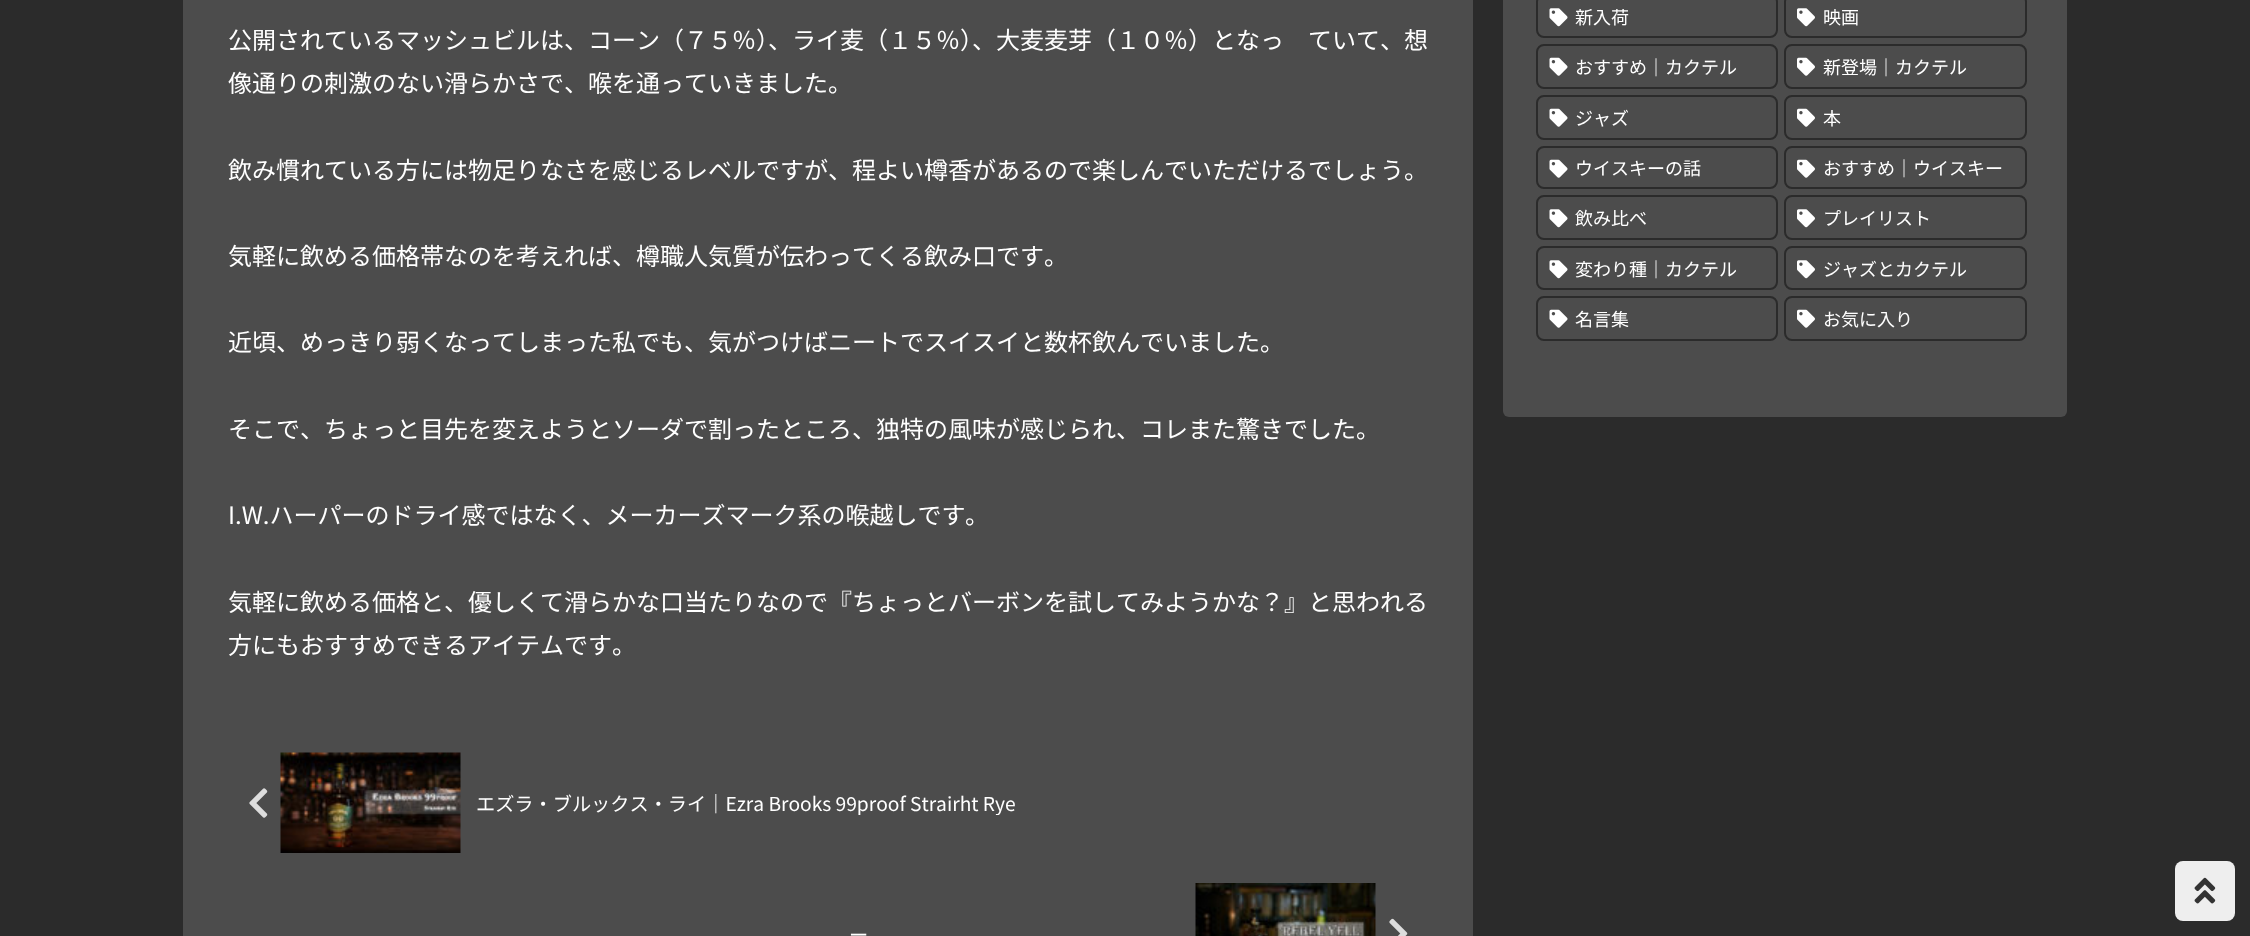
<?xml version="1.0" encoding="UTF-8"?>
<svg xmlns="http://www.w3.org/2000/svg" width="2250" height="936">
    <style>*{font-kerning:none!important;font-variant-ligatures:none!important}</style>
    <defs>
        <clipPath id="clip1"><rect x="476" y="792" width="540" height="23"/></clipPath>
    </defs>
    <rect width="100%" height="100%" fill="#2B2B2B"/>
    <rect x="183" y="0" width="1290" height="936" fill="#4C4C4C"/>
    <text x="228" y="49" font-family="Noto Sans JP" font-size="24" fill="#FFFFFF">公開されているマッシュビルは、コーン（７５％）、ライ麦（１５％）、大麦麦芽（１０％）となっ</text>
    <text x="1308" y="49" font-family="Noto Sans JP" font-size="24" fill="#FFFFFF">ていて、想</text>
    <text x="228" y="92" font-family="Noto Sans JP" font-size="24" fill="#FFFFFF">像通りの刺激のない滑らかさで、喉を通っていきました。</text>
    <text x="228" y="179" font-family="Noto Sans JP" font-size="24" fill="#FFFFFF">飲み慣れている方には物足りなさを感じるレベルですが、程よい樽香があるので楽しんでいただけるでしょう。</text>
    <text x="228" y="265" font-family="Noto Sans JP" font-size="24" fill="#FFFFFF">気軽に飲める価格帯なのを考えれば、樽職人気質が伝わってくる飲み口です</text>
    <text x="1044" y="265" font-family="Noto Sans JP" font-size="24" fill="#FFFFFF">。</text>
    <text x="228" y="351" font-family="Noto Sans JP" font-size="24" fill="#FFFFFF">近頃、めっきり弱くなってしまった私でも、気がつけばニートでスイスイと数杯飲ん</text>
    <text x="1140" y="351" font-family="Noto Sans JP" font-size="24" fill="#FFFFFF">でいました。</text>
    <text x="228" y="438" font-family="Noto Sans JP" font-size="24" fill="#FFFFFF">そこで、ちょっと目先を変えようとソーダで割ったところ、独特の風味が感じられ、コレまた驚きでした。</text>
    <text x="228" y="524" font-family="Noto Sans JP" font-size="24" fill="#FFFFFF">I.W.ハーパーのドライ感ではなく、メーカーズマーク系の喉越しです</text>
    <text x="965" y="524" font-family="Noto Sans JP" font-size="24" fill="#FFFFFF">。</text>
    <text font-family="Noto Sans JP" font-size="24" fill="#FFFFFF">
        <tspan x="228" y="611">気軽に飲める価格と、優しくて滑らかな口当たりなので『ちょっとバーボンを試してみようかな？』と思われる</tspan>
        <tspan x="228" y="654">方にもおすすめできるアイテムです</tspan>
    </text>
    <text x="612" y="654" font-family="Noto Sans JP" font-size="24" fill="#FFFFFF">。</text>
    <image x="249" y="788" width="19" height="30" href="img_01.png"/>
    <image x="280" y="752" width="181" height="101" href="img_02.png"/>
    <g clip-path="url(#clip1)">
        <text x="476" y="811" font-family="Noto Sans JP" font-size="19.2" fill="#FFFFFF">エズラ・ブルックス・ライ｜Ezra Brooks 99proof Strairht Rye</text>
    </g>
    <text x="849" y="942" font-family="Noto Sans JP" font-size="19.2" fill="#FFFFFF">ー</text>
    <image x="1195" y="883" width="181" height="53" href="img_03.png"/>
    <image x="1389" y="918" width="19" height="18" href="img_04.png"/>
    <rect x="1503" y="-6" width="564" height="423" rx="6" fill="#4C4C4C"/>
    <rect x="1537" y="-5" width="240" height="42" rx="7" fill="none" stroke="#2B2B2B" stroke-width="2"/>
    <image x="1549" y="8" width="19" height="19" href="img_05.png"/>
    <text x="1575" y="24" font-family="Noto Sans JP" font-size="18" fill="#FFFFFF">新入荷</text>
    <rect x="1785" y="-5" width="241" height="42" rx="7" fill="none" stroke="#2B2B2B" stroke-width="2"/>
    <image x="1797" y="8" width="18" height="19" href="img_06.png"/>
    <text x="1823" y="24" font-family="Noto Sans JP" font-size="18" fill="#FFFFFF">映画</text>
    <rect x="1537" y="45" width="240" height="43" rx="7" fill="none" stroke="#2B2B2B" stroke-width="2"/>
    <image x="1549" y="57" width="19" height="19" href="img_07.png"/>
    <text x="1575" y="74" font-family="Noto Sans JP" font-size="18" fill="#FFFFFF">おすすめ｜カクテル</text>
    <rect x="1785" y="45" width="241" height="43" rx="7" fill="none" stroke="#2B2B2B" stroke-width="2"/>
    <image x="1797" y="57" width="18" height="19" href="img_08.png"/>
    <text x="1823" y="74" font-family="Noto Sans JP" font-size="18" fill="#FFFFFF">新登場｜カクテル</text>
    <rect x="1537" y="96" width="240" height="43" rx="7" fill="none" stroke="#2B2B2B" stroke-width="2"/>
    <image x="1549" y="108" width="19" height="19" href="img_07.png"/>
    <text x="1575" y="125" font-family="Noto Sans JP" font-size="18" fill="#FFFFFF">ジャズ</text>
    <rect x="1785" y="96" width="241" height="43" rx="7" fill="none" stroke="#2B2B2B" stroke-width="2"/>
    <image x="1797" y="108" width="18" height="19" href="img_08.png"/>
    <text x="1823" y="125" font-family="Noto Sans JP" font-size="18" fill="#FFFFFF">本</text>
    <rect x="1537" y="147" width="240" height="41" rx="7" fill="none" stroke="#2B2B2B" stroke-width="2"/>
    <image x="1549" y="159" width="19" height="19" href="img_07.png"/>
    <text x="1575" y="175" font-family="Noto Sans JP" font-size="18" fill="#FFFFFF">ウイスキーの話</text>
    <rect x="1785" y="147" width="241" height="41" rx="7" fill="none" stroke="#2B2B2B" stroke-width="2"/>
    <image x="1797" y="159" width="18" height="19" href="img_08.png"/>
    <text x="1823" y="175" font-family="Noto Sans JP" font-size="18" fill="#FFFFFF">おすすめ｜ウイスキー</text>
    <rect x="1537" y="196" width="240" height="43" rx="7" fill="none" stroke="#2B2B2B" stroke-width="2"/>
    <image x="1549" y="209" width="19" height="19" href="img_05.png"/>
    <text x="1575" y="225" font-family="Noto Sans JP" font-size="18" fill="#FFFFFF">飲み比べ</text>
    <rect x="1785" y="196" width="241" height="43" rx="7" fill="none" stroke="#2B2B2B" stroke-width="2"/>
    <image x="1797" y="209" width="18" height="19" href="img_06.png"/>
    <text x="1823" y="225" font-family="Noto Sans JP" font-size="18" fill="#FFFFFF">プレイリスト</text>
    <rect x="1537" y="247" width="240" height="42" rx="7" fill="none" stroke="#2B2B2B" stroke-width="2"/>
    <image x="1549" y="260" width="19" height="19" href="img_05.png"/>
    <text x="1575" y="276" font-family="Noto Sans JP" font-size="18" fill="#FFFFFF">変わり種｜カクテル</text>
    <rect x="1785" y="247" width="241" height="42" rx="7" fill="none" stroke="#2B2B2B" stroke-width="2"/>
    <image x="1797" y="260" width="18" height="19" href="img_06.png"/>
    <text x="1823" y="276" font-family="Noto Sans JP" font-size="18" fill="#FFFFFF">ジャズとカクテル</text>
    <rect x="1537" y="297" width="240" height="43" rx="7" fill="none" stroke="#2B2B2B" stroke-width="2"/>
    <image x="1549" y="309" width="19" height="19" href="img_07.png"/>
    <text x="1575" y="326" font-family="Noto Sans JP" font-size="18" fill="#FFFFFF">名言集</text>
    <rect x="1785" y="297" width="241" height="43" rx="7" fill="none" stroke="#2B2B2B" stroke-width="2"/>
    <image x="1797" y="309" width="18" height="19" href="img_08.png"/>
    <text x="1823" y="326" font-family="Noto Sans JP" font-size="18" fill="#FFFFFF">お気に入り</text>
    <rect x="2175" y="861" width="60" height="60" rx="8" fill="#EEEEEE"/>
    <image x="2194" y="877" width="22" height="27" href="img_09.png"/>
</svg>
